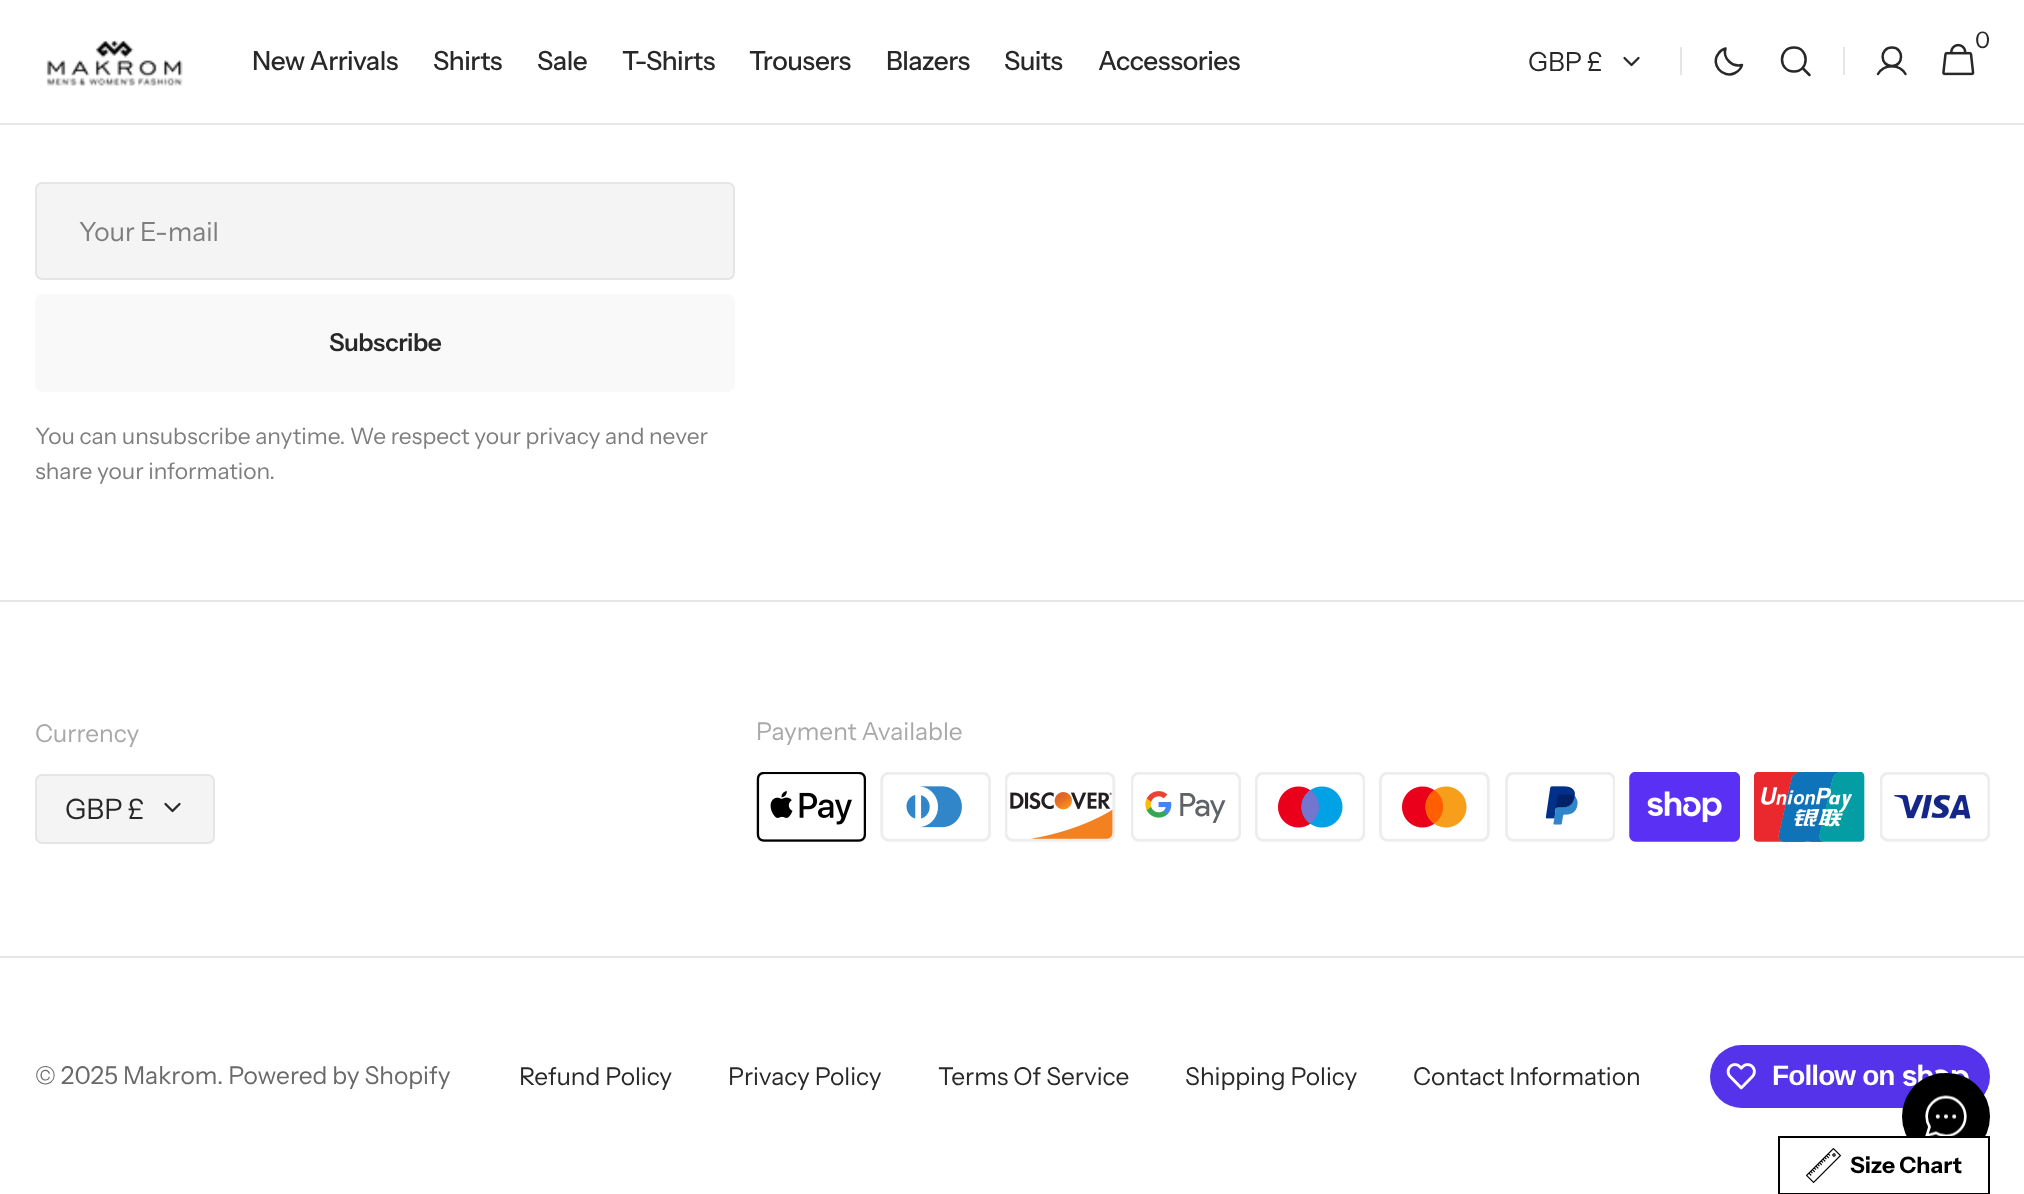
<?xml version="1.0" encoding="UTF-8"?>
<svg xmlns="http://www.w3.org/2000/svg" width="2024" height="1194">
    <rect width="100%" height="100%" fill="#FFFFFF"/>
    <image x="46" y="39" width="137" height="47" href="img_01.png"/>
    <text x="252" y="70" font-family="Instrument Sans" font-size="26.25" font-weight="500" letter-spacing="-0.5" fill="#282828">New Arrivals</text>
    <text x="433" y="70" font-family="Instrument Sans" font-size="26.25" font-weight="500" letter-spacing="-0.5" fill="#282828">Shirts</text>
    <text x="537" y="70" font-family="Instrument Sans" font-size="26.25" font-weight="500" letter-spacing="-0.5" fill="#282828">Sale</text>
    <text x="622" y="70" font-family="Instrument Sans" font-size="26.25" font-weight="500" letter-spacing="-0.5" fill="#282828">T-Shirts</text>
    <text x="749" y="70" font-family="Instrument Sans" font-size="26.25" font-weight="500" letter-spacing="-0.5" fill="#282828">Trousers</text>
    <text x="886" y="70" font-family="Instrument Sans" font-size="26.25" font-weight="500" letter-spacing="-0.5" fill="#282828">Blazers</text>
    <text x="1004" y="70" font-family="Instrument Sans" font-size="26.25" font-weight="500" letter-spacing="-0.5" fill="#282828">Suits</text>
    <text x="1098" y="70" font-family="Instrument Sans" font-size="26.25" font-weight="500" letter-spacing="-0.5" fill="#282828">Accessories</text>
    <text x="1975" y="48" font-family="Instrument Sans" font-size="22.75" fill="#282828">0</text>
    <image x="1942" y="43" width="33" height="33" href="img_02.png"/>
    <path d="M 1892 66 C 1904 66 1904 47.5 1892 47.5 C 1879.5 47.5 1879.5 66 1892 66 Z" fill="none" stroke="#282828" stroke-width="2.5"/>
    <path d="M 1878 74 C 1884 63.5 1899.5 63.5 1905.5 74" fill="none" stroke="#282828" stroke-width="2.5" stroke-linecap="round" stroke-linejoin="round"/>
    <text x="1528" y="71" font-family="Instrument Sans" font-size="26.25" fill="#282828">GBP £</text>
    <path d="M 1638.5 58 L 1631.5 65 L 1624.5 58" fill="none" stroke="#282828" stroke-width="2.3" stroke-linecap="round" stroke-linejoin="round"/>
    <rect x="1680" y="47" width="2" height="28" fill="#E5E5E5"/>
    <path d="M 1742 65 C 1732 67.5 1722.5 58 1725.5 48.5 C 1722.5 49.5 1720 51 1718.5 53.5 C 1710 64 1722.5 79 1735 73 C 1738 71.5 1741 68.5 1742 65 Z" fill="none" stroke="#282828" stroke-width="2.5" stroke-linecap="round" stroke-linejoin="round"/>
    <path d="M 1794 71.5 C 1809.5 71.5 1809.5 47.5 1794 47.5 C 1778 47.5 1778 71.5 1794 71.5 Z M 1802.5 68 L 1809.5 75" fill="none" stroke="#282828" stroke-width="2.5" stroke-linecap="round" stroke-linejoin="round"/>
    <rect x="1843" y="47" width="2" height="28" fill="#E5E5E5"/>
    <rect x="0" y="123" width="2024" height="2" fill="#E5E5E5"/>
    <rect x="36" y="183" width="698" height="96" rx="6" fill="#F4F4F4" stroke="#E5E5E5" stroke-width="2"/>
    <text x="79" y="241" font-family="Instrument Sans" font-size="26.25" fill="#7E7E7E">Your E-mail</text>
    <rect x="35" y="294" width="700" height="98" rx="7" fill="#F9F9F9"/>
    <text x="329" y="351" font-family="Instrument Sans" font-size="24.5" font-weight="600" letter-spacing="-0.5" fill="#282828">Subscribe</text>
    <text font-family="Instrument Sans" font-size="22.75" fill="#7E7E7E">
        <tspan x="35" y="444">You can unsubscribe anytime. We respect your privacy and never</tspan>
        <tspan x="35" y="479">share your information.</tspan>
    </text>
    <rect x="0" y="600" width="2024" height="2" fill="#E5E5E5"/>
    <rect x="0" y="956" width="2024" height="2" fill="#E5E5E5"/>
    <text x="35" y="742" font-family="Instrument Sans" font-size="24.5" fill="#A9A9A9">Currency</text>
    <rect x="36" y="775" width="178" height="68" rx="6" fill="#F4F4F4" stroke="#E5E5E5" stroke-width="2"/>
    <text x="65" y="819" font-family="Instrument Sans" font-size="28" fill="#282828">GBP £</text>
    <path d="M 179.5 804 L 172.5 811 L 165.5 804" fill="none" stroke="#282828" stroke-width="2.3" stroke-linecap="round" stroke-linejoin="round"/>
    <text x="756" y="740" font-family="Instrument Sans" font-size="24.5" fill="#A9A9A9">Payment Available</text>
    <image x="756" y="772" width="110" height="70" href="img_03.png"/>
    <image x="880" y="772" width="111" height="70" href="img_04.png"/>
    <image x="1005" y="772" width="111" height="70" href="img_05.png"/>
    <image x="1131" y="772" width="110" height="70" href="img_06.png"/>
    <image x="1255" y="772" width="110" height="70" href="img_07.png"/>
    <image x="1379" y="772" width="111" height="70" href="img_08.png"/>
    <image x="1505" y="772" width="110" height="70" href="img_09.png"/>
    <image x="1629" y="772" width="111" height="70" href="img_10.png"/>
    <image x="1754" y="772" width="111" height="70" href="img_11.png"/>
    <image x="1880" y="772" width="110" height="70" href="img_12.png"/>
    <text x="35" y="1084" font-family="Instrument Sans" font-size="24.5" fill="#696969">© 2025 Makrom</text>
    <text x="217" y="1084" font-family="Instrument Sans" font-size="24.5" fill="#696969">. Powered by Shopify</text>
    <text x="519" y="1085" font-family="Instrument Sans" font-size="24.5" fill="#282828">Refund Policy</text>
    <text x="728" y="1085" font-family="Instrument Sans" font-size="24.5" fill="#282828">Privacy Policy</text>
    <text x="938" y="1085" font-family="Instrument Sans" font-size="24.5" fill="#282828">Terms Of Service</text>
    <text x="1185" y="1085" font-family="Instrument Sans" font-size="24.5" fill="#282828">Shipping Policy</text>
    <text x="1413" y="1085" font-family="Instrument Sans" font-size="24.5" fill="#282828">Contact Information</text>
    <rect x="1710" y="1045" width="280" height="63" rx="31.5" fill="#5433EB"/>
    <image x="1726" y="1063" width="30" height="27" href="img_13.png"/>
    <text x="1772" y="1085" font-family="Liberation Sans" font-size="28" font-weight="700" letter-spacing="-0.9" fill="#FFFFFF">Follow on</text>
    <image x="1903" y="1064" width="66" height="23" href="img_14.png"/>
    <rect x="1902" y="1073" width="88" height="87" rx="43.5" fill="#000000"/>
    <image x="1925" y="1095" width="42" height="41" href="img_15.png"/>
    <rect x="1907" y="1138" width="78" height="22" fill="#FFFFFF"/>
    <rect x="1779" y="1137" width="210" height="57" fill="none" stroke="#000000" stroke-width="2"/>
    <image x="1806" y="1148" width="35" height="35" href="img_16.png"/>
    <text x="1850" y="1173" font-family="Instrument Sans" font-size="22.75" font-weight="700" fill="#000000">Size Chart</text>
</svg>
